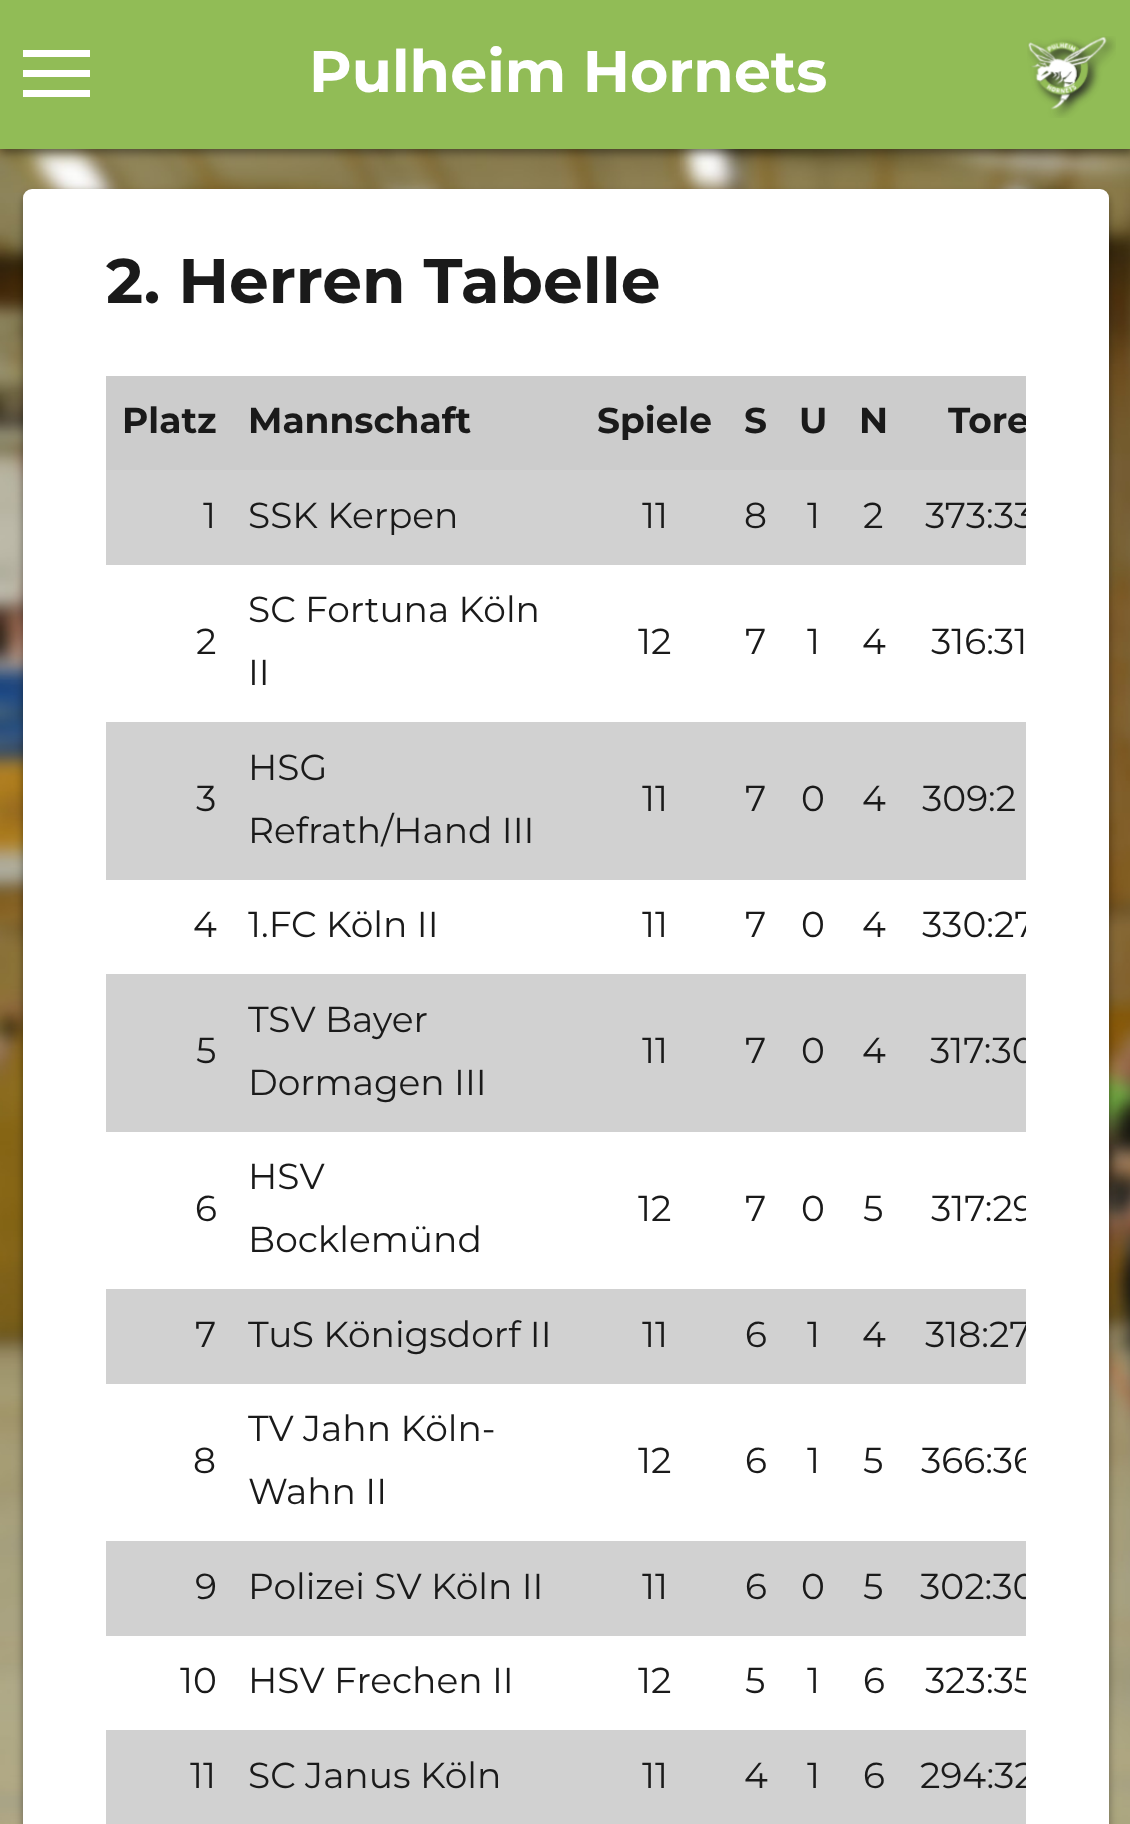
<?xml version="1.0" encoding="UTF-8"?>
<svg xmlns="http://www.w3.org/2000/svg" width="1130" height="1824">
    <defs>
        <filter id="blur1" x="-50%" y="-200%" width="200%" height="500%"><feGaussianBlur stdDeviation="4.5"/></filter>
        <clipPath id="clip1"><rect x="106" y="376" width="920" height="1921"/></clipPath>
    </defs>
    <rect width="100%" height="100%" fill="#FFFFFF"/>
    <image x="0" y="149" width="1130" height="1675" href="img_01.png"/>
    <rect x="0" y="5" width="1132" height="148" fill="#000000" fill-opacity="0.4" filter="url(#blur1)"/>
    <rect x="0" y="0" width="1130" height="149" fill="#91BC56"/>
    <rect x="23" y="50" width="67" height="7" fill="#FFFFFF"/>
    <rect x="23" y="70" width="67" height="7" fill="#FFFFFF"/>
    <rect x="23" y="90" width="67" height="7" fill="#FFFFFF"/>
    <text x="309" y="92" font-family="Montserrat" font-size="58.5" font-weight="700" fill="#FFFFFF">Pulheim Hornets</text>
    <image x="1027" y="36" width="89" height="82" href="img_02.png"/>
    <rect x="23" y="194" width="1086" height="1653" rx="9" fill="#000000" fill-opacity="0.4" filter="url(#blur1)"/>
    <rect x="23" y="189" width="1086" height="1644" rx="9" fill="#FFFFFF"/>
    <text x="106" y="303" font-family="Montserrat" font-size="63" font-weight="700" fill="#1A1A1A">2. Herren Tabelle</text>
    <rect x="106" y="376" width="920" height="94" fill="#CCCCCC"/>
    <text x="122" y="433" font-family="Montserrat" font-size="36" font-weight="700" fill="#1A1A1A">Platz</text>
    <text x="248" y="433" font-family="Montserrat" font-size="36" font-weight="700" fill="#1A1A1A">Mannschaft</text>
    <text x="597" y="433" font-family="Montserrat" font-size="36" font-weight="700" fill="#1A1A1A">Spiele</text>
    <text x="744" y="433" font-family="Montserrat" font-size="36" font-weight="700" fill="#1A1A1A">S</text>
    <text x="799" y="433" font-family="Montserrat" font-size="36" font-weight="700" fill="#1A1A1A">U</text>
    <text x="859" y="433" font-family="Montserrat" font-size="36" font-weight="700" fill="#1A1A1A">N</text>
    <g clip-path="url(#clip1)">
        <text x="948" y="433" font-family="Montserrat" font-size="36" font-weight="700" fill="#1A1A1A">Tore</text>
    </g>
    <rect x="106" y="470" width="920" height="95" fill="#D1D1D1"/>
    <text x="203" y="528" font-family="Montserrat" font-size="36" fill="#1A1A1A">1</text>
    <text x="248" y="528" font-family="Montserrat" font-size="36" fill="#1A1A1A">SSK Kerpen</text>
    <text x="642" y="528" font-family="Montserrat" font-size="36" fill="#1A1A1A">11</text>
    <text x="744" y="528" font-family="Montserrat" font-size="36" fill="#1A1A1A">8</text>
    <text x="807" y="528" font-family="Montserrat" font-size="36" fill="#1A1A1A">1</text>
    <text x="863" y="528" font-family="Montserrat" font-size="36" fill="#1A1A1A">2</text>
    <g clip-path="url(#clip1)">
        <text x="925" y="528" font-family="Montserrat" font-size="36" fill="#1A1A1A">373:33</text>
    </g>
    <text x="196" y="654" font-family="Montserrat" font-size="36" fill="#1A1A1A">2</text>
    <text font-family="Montserrat" font-size="36" fill="#1A1A1A">
        <tspan x="248" y="622">SC Fortuna Köln</tspan>
        <tspan x="248" y="685">II</tspan>
    </text>
    <text x="638" y="654" font-family="Montserrat" font-size="36" fill="#1A1A1A">12</text>
    <text x="745" y="654" font-family="Montserrat" font-size="36" fill="#1A1A1A">7</text>
    <text x="807" y="654" font-family="Montserrat" font-size="36" fill="#1A1A1A">1</text>
    <text x="862" y="654" font-family="Montserrat" font-size="36" fill="#1A1A1A">4</text>
    <text x="931" y="654" font-family="Montserrat" font-size="36" fill="#1A1A1A">316:31</text>
    <rect x="106" y="722" width="920" height="158" fill="#D1D1D1"/>
    <text x="196" y="811" font-family="Montserrat" font-size="36" fill="#1A1A1A">3</text>
    <text font-family="Montserrat" font-size="36" fill="#1A1A1A">
        <tspan x="248" y="780">HSG</tspan>
        <tspan x="248" y="843">Refrath/Hand III</tspan>
    </text>
    <text x="642" y="811" font-family="Montserrat" font-size="36" fill="#1A1A1A">11</text>
    <text x="745" y="811" font-family="Montserrat" font-size="36" fill="#1A1A1A">7</text>
    <text x="801" y="811" font-family="Montserrat" font-size="36" fill="#1A1A1A">0</text>
    <text x="862" y="811" font-family="Montserrat" font-size="36" fill="#1A1A1A">4</text>
    <text x="922" y="811" font-family="Montserrat" font-size="36" fill="#1A1A1A">309:2</text>
    <text x="193" y="937" font-family="Montserrat" font-size="36" fill="#1A1A1A">4</text>
    <text x="248" y="937" font-family="Montserrat" font-size="36" fill="#1A1A1A">1.FC Köln II</text>
    <text x="642" y="937" font-family="Montserrat" font-size="36" fill="#1A1A1A">11</text>
    <text x="745" y="937" font-family="Montserrat" font-size="36" fill="#1A1A1A">7</text>
    <text x="801" y="937" font-family="Montserrat" font-size="36" fill="#1A1A1A">0</text>
    <text x="862" y="937" font-family="Montserrat" font-size="36" fill="#1A1A1A">4</text>
    <g clip-path="url(#clip1)">
        <text x="922" y="937" font-family="Montserrat" font-size="36" fill="#1A1A1A">330:27</text>
    </g>
    <rect x="106" y="974" width="920" height="158" fill="#D1D1D1"/>
    <text x="196" y="1063" font-family="Montserrat" font-size="36" fill="#1A1A1A">5</text>
    <text font-family="Montserrat" font-size="36" fill="#1A1A1A">
        <tspan x="248" y="1032">TSV Bayer</tspan>
        <tspan x="248" y="1095">Dormagen III</tspan>
    </text>
    <text x="642" y="1063" font-family="Montserrat" font-size="36" fill="#1A1A1A">11</text>
    <text x="745" y="1063" font-family="Montserrat" font-size="36" fill="#1A1A1A">7</text>
    <text x="801" y="1063" font-family="Montserrat" font-size="36" fill="#1A1A1A">0</text>
    <text x="862" y="1063" font-family="Montserrat" font-size="36" fill="#1A1A1A">4</text>
    <g clip-path="url(#clip1)">
        <text x="930" y="1063" font-family="Montserrat" font-size="36" fill="#1A1A1A">317:30</text>
    </g>
    <text x="195" y="1221" font-family="Montserrat" font-size="36" fill="#1A1A1A">6</text>
    <text font-family="Montserrat" font-size="36" fill="#1A1A1A">
        <tspan x="248" y="1189">HSV</tspan>
        <tspan x="248" y="1252">Bocklemünd</tspan>
    </text>
    <text x="638" y="1221" font-family="Montserrat" font-size="36" fill="#1A1A1A">12</text>
    <text x="745" y="1221" font-family="Montserrat" font-size="36" fill="#1A1A1A">7</text>
    <text x="801" y="1221" font-family="Montserrat" font-size="36" fill="#1A1A1A">0</text>
    <text x="863" y="1221" font-family="Montserrat" font-size="36" fill="#1A1A1A">5</text>
    <g clip-path="url(#clip1)">
        <text x="931" y="1221" font-family="Montserrat" font-size="36" fill="#1A1A1A">317:29</text>
    </g>
    <rect x="106" y="1289" width="920" height="95" fill="#D1D1D1"/>
    <text x="195" y="1347" font-family="Montserrat" font-size="36" fill="#1A1A1A">7</text>
    <text x="248" y="1347" font-family="Montserrat" font-size="36" fill="#1A1A1A">TuS Königsdorf II</text>
    <text x="642" y="1347" font-family="Montserrat" font-size="36" fill="#1A1A1A">11</text>
    <text x="745" y="1347" font-family="Montserrat" font-size="36" fill="#1A1A1A">6</text>
    <text x="807" y="1347" font-family="Montserrat" font-size="36" fill="#1A1A1A">1</text>
    <text x="862" y="1347" font-family="Montserrat" font-size="36" fill="#1A1A1A">4</text>
    <g clip-path="url(#clip1)">
        <text x="925" y="1347" font-family="Montserrat" font-size="36" fill="#1A1A1A">318:27</text>
    </g>
    <text x="193" y="1473" font-family="Montserrat" font-size="36" fill="#1A1A1A">8</text>
    <text font-family="Montserrat" font-size="36" fill="#1A1A1A">
        <tspan x="248" y="1441">TV Jahn Köln-</tspan>
        <tspan x="248" y="1504">Wahn II</tspan>
    </text>
    <text x="638" y="1473" font-family="Montserrat" font-size="36" fill="#1A1A1A">12</text>
    <text x="745" y="1473" font-family="Montserrat" font-size="36" fill="#1A1A1A">6</text>
    <text x="807" y="1473" font-family="Montserrat" font-size="36" fill="#1A1A1A">1</text>
    <text x="863" y="1473" font-family="Montserrat" font-size="36" fill="#1A1A1A">5</text>
    <g clip-path="url(#clip1)">
        <text x="921" y="1473" font-family="Montserrat" font-size="36" fill="#1A1A1A">366:36</text>
    </g>
    <rect x="106" y="1541" width="920" height="95" fill="#D1D1D1"/>
    <text x="195" y="1599" font-family="Montserrat" font-size="36" fill="#1A1A1A">9</text>
    <text x="248" y="1599" font-family="Montserrat" font-size="36" fill="#1A1A1A">Polizei SV Köln II</text>
    <text x="642" y="1599" font-family="Montserrat" font-size="36" fill="#1A1A1A">11</text>
    <text x="745" y="1599" font-family="Montserrat" font-size="36" fill="#1A1A1A">6</text>
    <text x="801" y="1599" font-family="Montserrat" font-size="36" fill="#1A1A1A">0</text>
    <text x="863" y="1599" font-family="Montserrat" font-size="36" fill="#1A1A1A">5</text>
    <g clip-path="url(#clip1)">
        <text x="920" y="1599" font-family="Montserrat" font-size="36" fill="#1A1A1A">302:30</text>
    </g>
    <text x="180" y="1693" font-family="Montserrat" font-size="36" fill="#1A1A1A">10</text>
    <text x="248" y="1693" font-family="Montserrat" font-size="36" fill="#1A1A1A">HSV Frechen II</text>
    <text x="638" y="1693" font-family="Montserrat" font-size="36" fill="#1A1A1A">12</text>
    <text x="745" y="1693" font-family="Montserrat" font-size="36" fill="#1A1A1A">5</text>
    <text x="807" y="1693" font-family="Montserrat" font-size="36" fill="#1A1A1A">1</text>
    <text x="863" y="1693" font-family="Montserrat" font-size="36" fill="#1A1A1A">6</text>
    <g clip-path="url(#clip1)">
        <text x="925" y="1693" font-family="Montserrat" font-size="36" fill="#1A1A1A">323:35</text>
    </g>
    <rect x="106" y="1730" width="920" height="94" fill="#D1D1D1"/>
    <text x="190" y="1788" font-family="Montserrat" font-size="36" fill="#1A1A1A">11</text>
    <text x="248" y="1788" font-family="Montserrat" font-size="36" fill="#1A1A1A">SC Janus Köln</text>
    <text x="642" y="1788" font-family="Montserrat" font-size="36" fill="#1A1A1A">11</text>
    <text x="744" y="1788" font-family="Montserrat" font-size="36" fill="#1A1A1A">4</text>
    <text x="807" y="1788" font-family="Montserrat" font-size="36" fill="#1A1A1A">1</text>
    <text x="863" y="1788" font-family="Montserrat" font-size="36" fill="#1A1A1A">6</text>
    <g clip-path="url(#clip1)">
        <text x="920" y="1788" font-family="Montserrat" font-size="36" fill="#1A1A1A">294:32</text>
    </g>
</svg>
